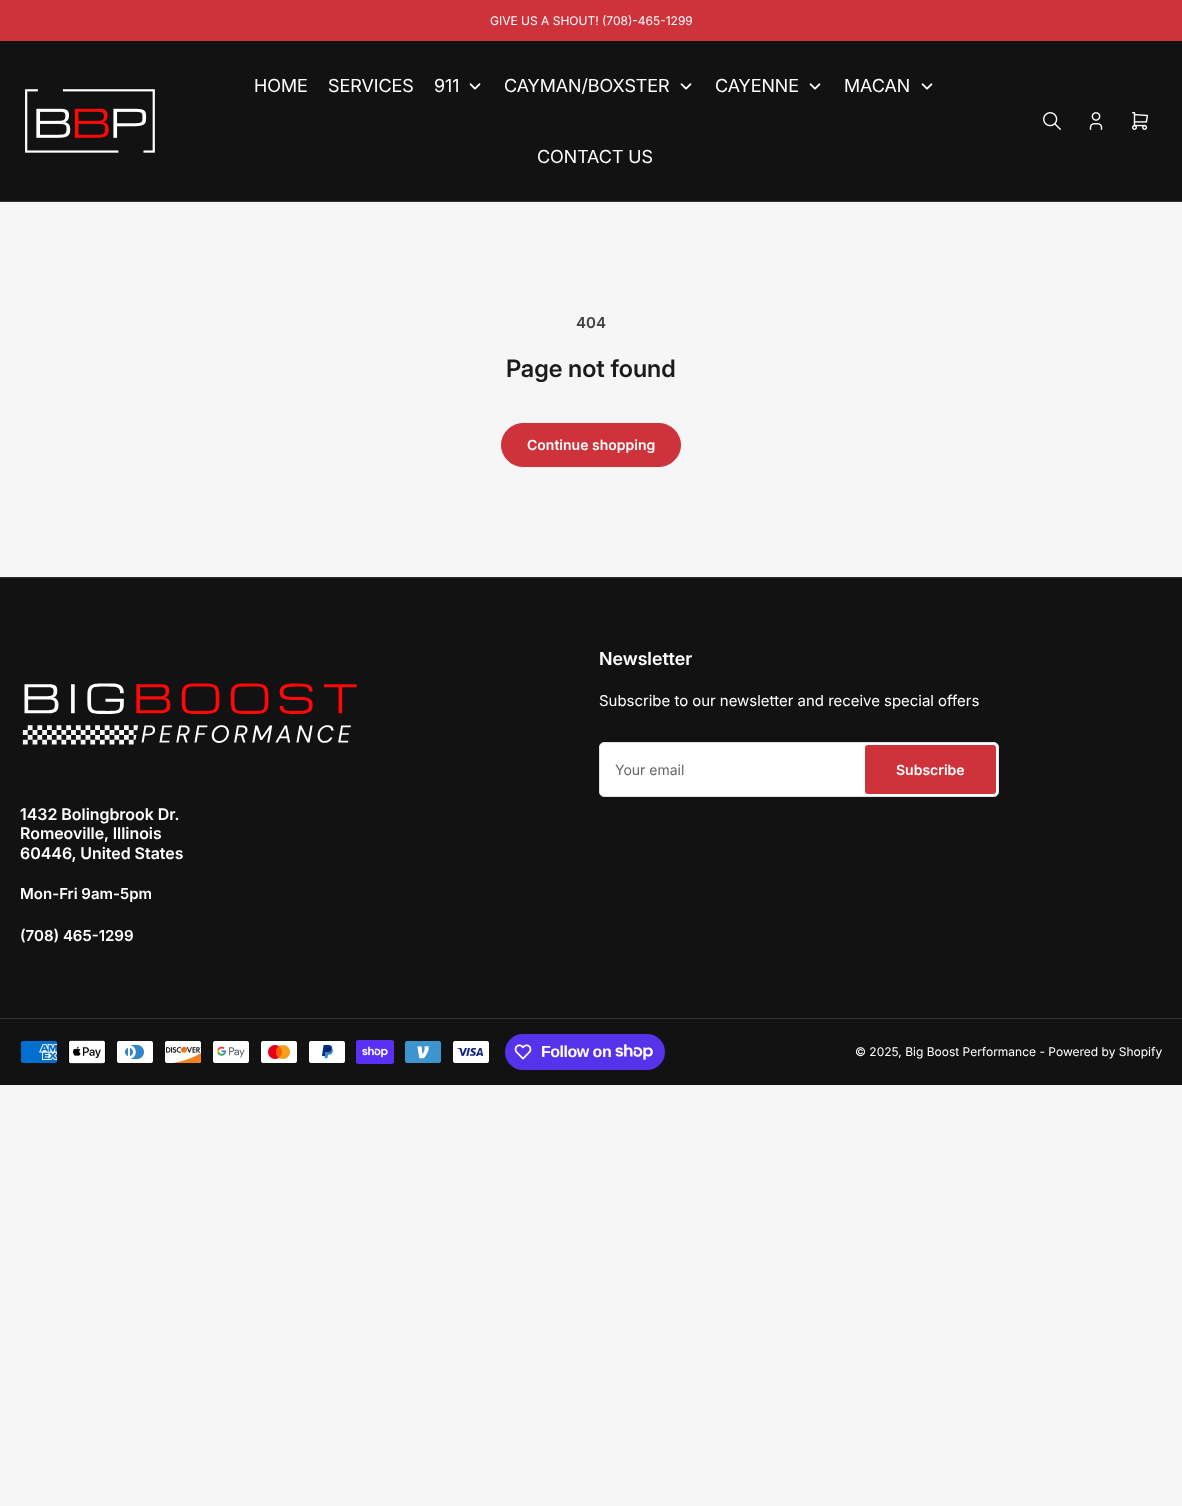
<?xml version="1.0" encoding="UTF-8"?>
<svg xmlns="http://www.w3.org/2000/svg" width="1182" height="1506">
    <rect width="100%" height="100%" fill="#F6F6F6"/>
    <rect x="0" y="0" width="1182" height="41" fill="#CE333C"/>
    <text x="490" y="25" font-family="Inter" font-size="12" fill="#FFFFFF">GIVE US A SHOUT! (708)-465-1299</text>
    <rect x="0" y="41" width="1182" height="160" fill="#121212"/>
    <rect x="0" y="201" width="1182" height="1" fill="#313131"/>
    <image x="25" y="89" width="130" height="64" href="img_01.png"/>
    <text x="254" y="92" font-family="'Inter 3'" font-size="18" fill="#FFFFFF">HOME</text>
    <text x="328" y="92" font-family="'Inter 3'" font-size="18" fill="#FFFFFF">SERVICES</text>
    <text x="434" y="92" font-family="'Inter 3'" font-size="18" fill="#FFFFFF">911</text>
    <image x="469" y="83" width="12" height="7" href="img_02.png"/>
    <text x="504" y="92" font-family="'Inter 3'" font-size="18" fill="#FFFFFF">CAYMAN/BOXSTER</text>
    <image x="680" y="83" width="12" height="7" href="img_02.png"/>
    <text x="715" y="92" font-family="'Inter 3'" font-size="18" fill="#FFFFFF">CAYENNE</text>
    <image x="809" y="83" width="12" height="7" href="img_02.png"/>
    <text x="844" y="92" font-family="'Inter 3'" font-size="18" fill="#FFFFFF">MACAN</text>
    <image x="921" y="83" width="12" height="7" href="img_02.png"/>
    <text x="537" y="163" font-family="'Inter 3'" font-size="18" fill="#FFFFFF">CONTACT US</text>
    <image x="1043" y="112" width="18" height="18" href="img_03.png"/>
    <image x="1089" y="112" width="14" height="18" href="img_04.png"/>
    <image x="1132" y="112" width="16" height="18" href="img_05.png"/>
    <text x="576" y="328" font-family="Inter" font-size="15" font-weight="600" fill="#404040">404</text>
    <text x="506" y="377" font-family="'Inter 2'" font-size="24" font-weight="600" fill="#1B1B1B">Page not found</text>
    <rect x="501.5" y="423.5" width="179" height="43" rx="21.5" fill="#CE333C" stroke="#CE333C"/>
    <text x="527" y="450" font-family="Inter" font-size="14" font-weight="600" fill="#FFFFFF">Continue shopping</text>
    <rect x="0" y="578" width="1182" height="440" fill="#121212"/>
    <rect x="0" y="577" width="1182" height="1" fill="#313131"/>
    <text x="599" y="665" font-family="'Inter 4'" font-size="18" font-weight="600" fill="#FFFFFF">Newsletter</text>
    <text x="599" y="706" font-family="'Inter 2'" font-size="15" fill="#FFFFFF">Subscribe to our newsletter and receive special offers</text>
    <rect x="599.5" y="742.5" width="399" height="54" rx="4.5" fill="#FFFFFF" stroke="#E1E1E1"/>
    <text x="615" y="775" font-family="Inter" font-size="14" fill="#666666">Your email</text>
    <rect x="865.5" y="745.5" width="130" height="48" rx="2" fill="#CE333C" stroke="#CE333C"/>
    <text x="896" y="775" font-family="Inter" font-size="14" font-weight="600" fill="#FFFFFF">Subscribe</text>
    <image x="22" y="683" width="335" height="62" href="img_06.png"/>
    <text font-family="'Inter 3'" font-size="16" font-weight="600" fill="#FFFFFF">
        <tspan x="20" y="820">1432 Bolingbrook Dr.</tspan>
        <tspan x="20" y="839">Romeoville, Illinois</tspan>
        <tspan x="20" y="859">60446, United States</tspan>
    </text>
    <text x="20" y="899" font-family="Inter" font-size="15" font-weight="600" fill="#FFFFFF">Mon-Fri 9am-5pm</text>
    <text x="20" y="941" font-family="Inter" font-size="15" font-weight="600" fill="#FFFFFF">(708) 465-1299</text>
    <rect x="0" y="1019" width="1182" height="66" fill="#121212"/>
    <rect x="0" y="1018" width="1182" height="1" fill="#313131"/>
    <image x="21" y="1041" width="36" height="22" href="img_07.png"/>
    <image x="68" y="1040" width="38" height="24" href="img_08.png"/>
    <image x="117" y="1041" width="36" height="22" href="img_09.png"/>
    <image x="165" y="1041" width="36" height="22" href="img_10.png"/>
    <image x="213" y="1041" width="36" height="22" href="img_11.png"/>
    <image x="261" y="1041" width="36" height="22" href="img_12.png"/>
    <image x="309" y="1041" width="36" height="22" href="img_13.png"/>
    <image x="356" y="1040" width="38" height="24" href="img_14.png"/>
    <image x="405" y="1041" width="36" height="22" href="img_15.png"/>
    <image x="453" y="1041" width="36" height="22" href="img_16.png"/>
    <rect x="505" y="1034" width="160" height="36" rx="18" fill="#5433EB"/>
    <image x="514" y="1044" width="18" height="16" href="img_17.png"/>
    <text x="541" y="1057" font-family="Liberation Sans" font-size="16" font-weight="700" letter-spacing="-0.5" fill="#FFFFFF">Follow on</text>
    <image x="615" y="1044" width="38" height="16" href="img_18.png"/>
    <text x="855" y="1056" font-family="Inter" font-size="12" fill="#FFFFFF">© 2025, Big Boost Performance - Powered by Shopify</text>
</svg>
